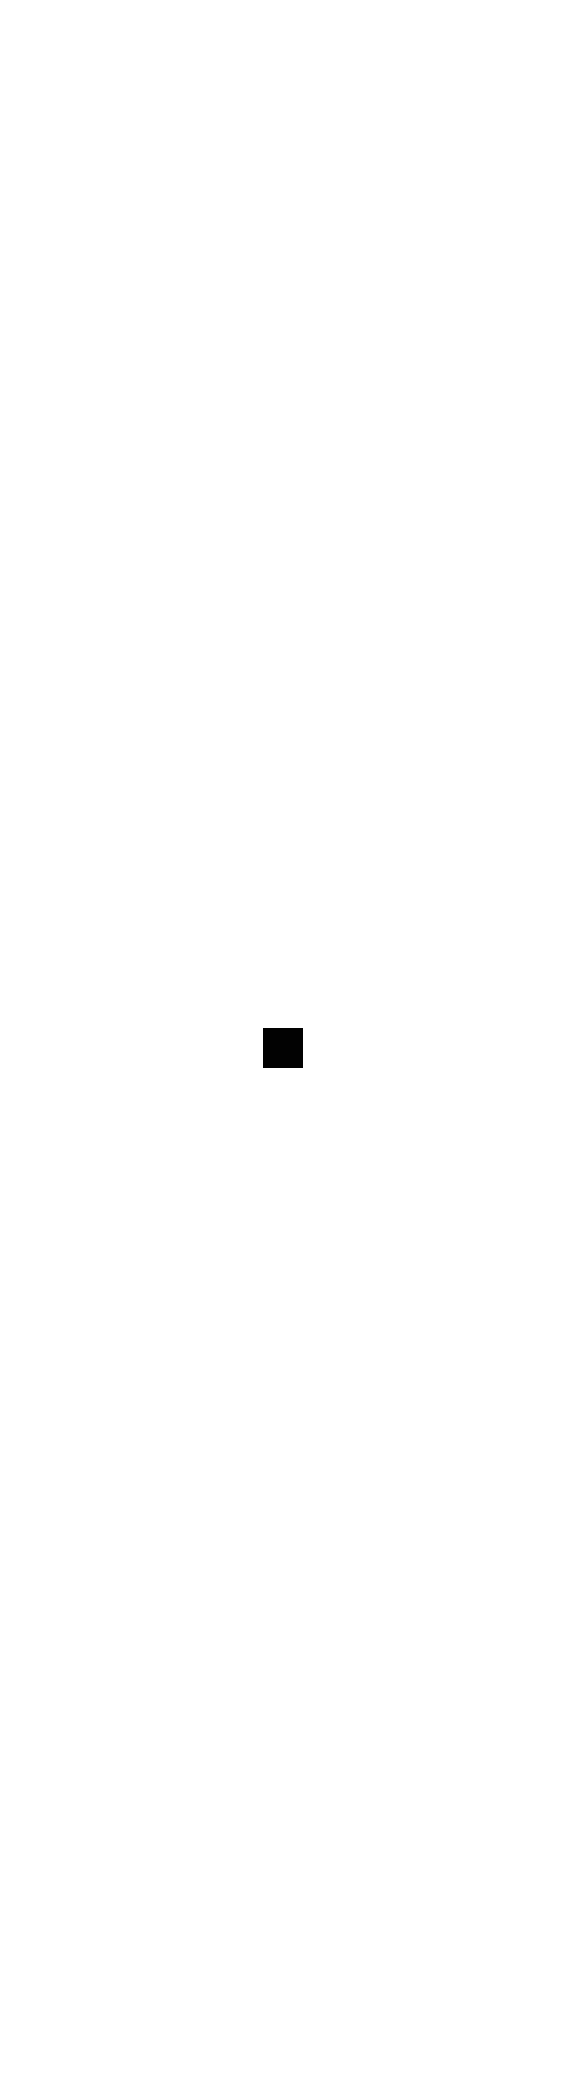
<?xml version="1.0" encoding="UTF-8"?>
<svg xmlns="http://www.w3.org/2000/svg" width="565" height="2096">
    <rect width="100%" height="100%" fill="#FFFFFF"/>
    <image x="19" y="21" width="458" height="147" href="img_01.png"/>
    <image x="496" y="211" width="16" height="16" href="img_02.png"/>
    <rect x="263" y="1028" width="40" height="40" fill="#020202"/>
</svg>
